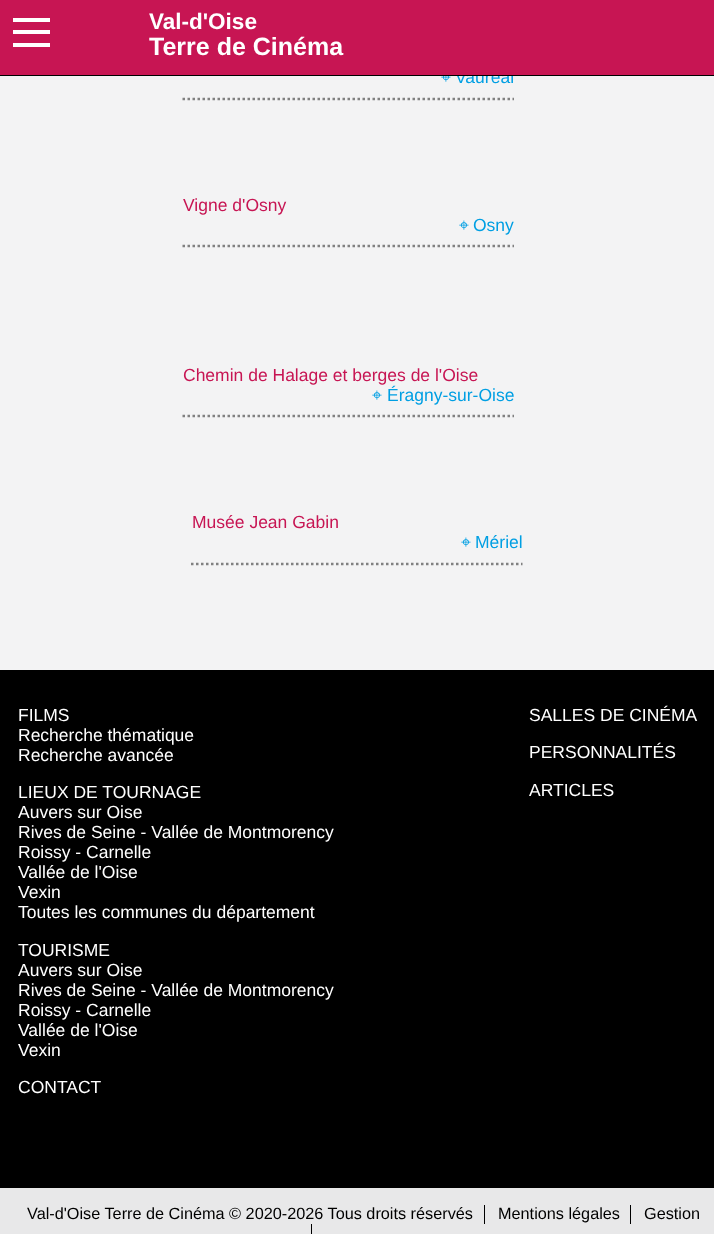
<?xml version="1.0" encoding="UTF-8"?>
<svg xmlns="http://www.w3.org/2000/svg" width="714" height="1234">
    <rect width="100%" height="100%" fill="#000000"/>
    <rect x="0" y="76" width="714" height="594" fill="#F3F3F4"/>
    <text x="441" y="83" font-family="FreeSerif" font-size="17.5" fill="#009FE3">⌖</text>
    <text x="455" y="83" font-family="Liberation Sans" font-size="17.5" fill="#009FE3">Vauréal</text>
    <rect x="0" y="0" width="714" height="75" fill="#C71553"/>
    <rect x="442" y="75" width="72" height="1" fill="#000000"/>
    <rect x="13" y="18" width="37" height="4" fill="#FFFFFF"/>
    <rect x="13" y="30" width="37" height="4" fill="#FFFFFF"/>
    <rect x="13" y="43" width="37" height="4" fill="#FFFFFF"/>
    <text x="149" y="29" font-family="Liberation Sans" font-size="22.5" font-weight="700" fill="#FFFFFF">Val-d'Oise</text>
    <text x="149" y="55" font-family="Liberation Sans" font-size="25" font-weight="700" fill="#FFFFFF">Terre de Cinéma</text>
    <path d="M 182.5 99 H 514" fill="none" stroke="#808080" stroke-width="2.5" stroke-dasharray="2.5 2.5"/>
    <text x="183" y="211" font-family="Liberation Sans" font-size="17.5" fill="#C71553">Vigne d'Osny</text>
    <path d="M 182.5 246 H 514" fill="none" stroke="#808080" stroke-width="2.5" stroke-dasharray="2.5 2.5"/>
    <text x="459" y="231" font-family="FreeSerif" font-size="17.5" fill="#009FE3">⌖</text>
    <text x="473" y="231" font-family="Liberation Sans" font-size="17.5" fill="#009FE3">Osny</text>
    <text x="183" y="381" font-family="Liberation Sans" font-size="17.5" fill="#C71553">Chemin de Halage et berges de l'Oise</text>
    <path d="M 182.5 416 H 514" fill="none" stroke="#808080" stroke-width="2.5" stroke-dasharray="2.5 2.5"/>
    <text x="372" y="401" font-family="FreeSerif" font-size="17.5" fill="#009FE3">⌖</text>
    <text x="387" y="401" font-family="Liberation Sans" font-size="17.5" fill="#009FE3">Éragny-sur-Oise</text>
    <text x="192" y="528" font-family="Liberation Sans" font-size="17.5" fill="#C71553">Musée Jean Gabin</text>
    <path d="M 191 564 H 522.5" fill="none" stroke="#808080" stroke-width="2.5" stroke-dasharray="2.5 2.5"/>
    <text x="461" y="548" font-family="FreeSerif" font-size="17.5" fill="#009FE3">⌖</text>
    <text x="475" y="548" font-family="Liberation Sans" font-size="17.5" fill="#009FE3">Mériel</text>
    <text font-family="Liberation Sans" font-size="17.5" fill="#FFFFFF">
        <tspan x="18" y="721">FILMS</tspan>
        <tspan x="18" y="741">Recherche thématique</tspan>
        <tspan x="18" y="761">Recherche avancée</tspan>
    </text>
    <text font-family="Liberation Sans" font-size="17.5" fill="#FFFFFF">
        <tspan x="18" y="798">LIEUX DE TOURNAGE</tspan>
        <tspan x="18" y="818">Auvers sur Oise</tspan>
        <tspan x="18" y="838">Rives de Seine - Vallée de Montmorency</tspan>
        <tspan x="18" y="858">Roissy - Carnelle</tspan>
        <tspan x="18" y="878">Vallée de l'Oise</tspan>
        <tspan x="18" y="898">Vexin</tspan>
        <tspan x="18" y="918">Toutes les communes du département</tspan>
    </text>
    <text x="529" y="721" font-family="Liberation Sans" font-size="17.5" fill="#FFFFFF">SALLES DE CINÉMA</text>
    <text x="529" y="758" font-family="Liberation Sans" font-size="17.5" fill="#FFFFFF">PERSONNALITÉS</text>
    <text x="529" y="796" font-family="Liberation Sans" font-size="17.5" fill="#FFFFFF">ARTICLES</text>
    <text font-family="Liberation Sans" font-size="17.5" fill="#FFFFFF">
        <tspan x="18" y="956">TOURISME</tspan>
        <tspan x="18" y="976">Auvers sur Oise</tspan>
        <tspan x="18" y="996">Rives de Seine - Vallée de Montmorency</tspan>
        <tspan x="18" y="1016">Roissy - Carnelle</tspan>
        <tspan x="18" y="1036">Vallée de l'Oise</tspan>
        <tspan x="18" y="1056">Vexin</tspan>
    </text>
    <text x="18" y="1093" font-family="Liberation Sans" font-size="17.5" fill="#FFFFFF">CONTACT</text>
    <rect x="0" y="1188" width="714" height="46" fill="#E8E8E9"/>
    <text x="27" y="1219" font-family="Liberation Sans" font-size="16.25" fill="#000000">Val-d'Oise Terre de Cinéma © 2020-2026 Tous droits réservés</text>
    <text x="498" y="1219" font-family="Liberation Sans" font-size="16.25" fill="#000000">Mentions légales</text>
    <rect x="484" y="1205" width="1" height="19" fill="#000000"/>
    <text x="644" y="1219" font-family="Liberation Sans" font-size="16.25" fill="#000000">Gestion</text>
    <rect x="630" y="1205" width="1" height="19" fill="#000000"/>
    <rect x="311" y="1224" width="1" height="10" fill="#000000"/>
</svg>
